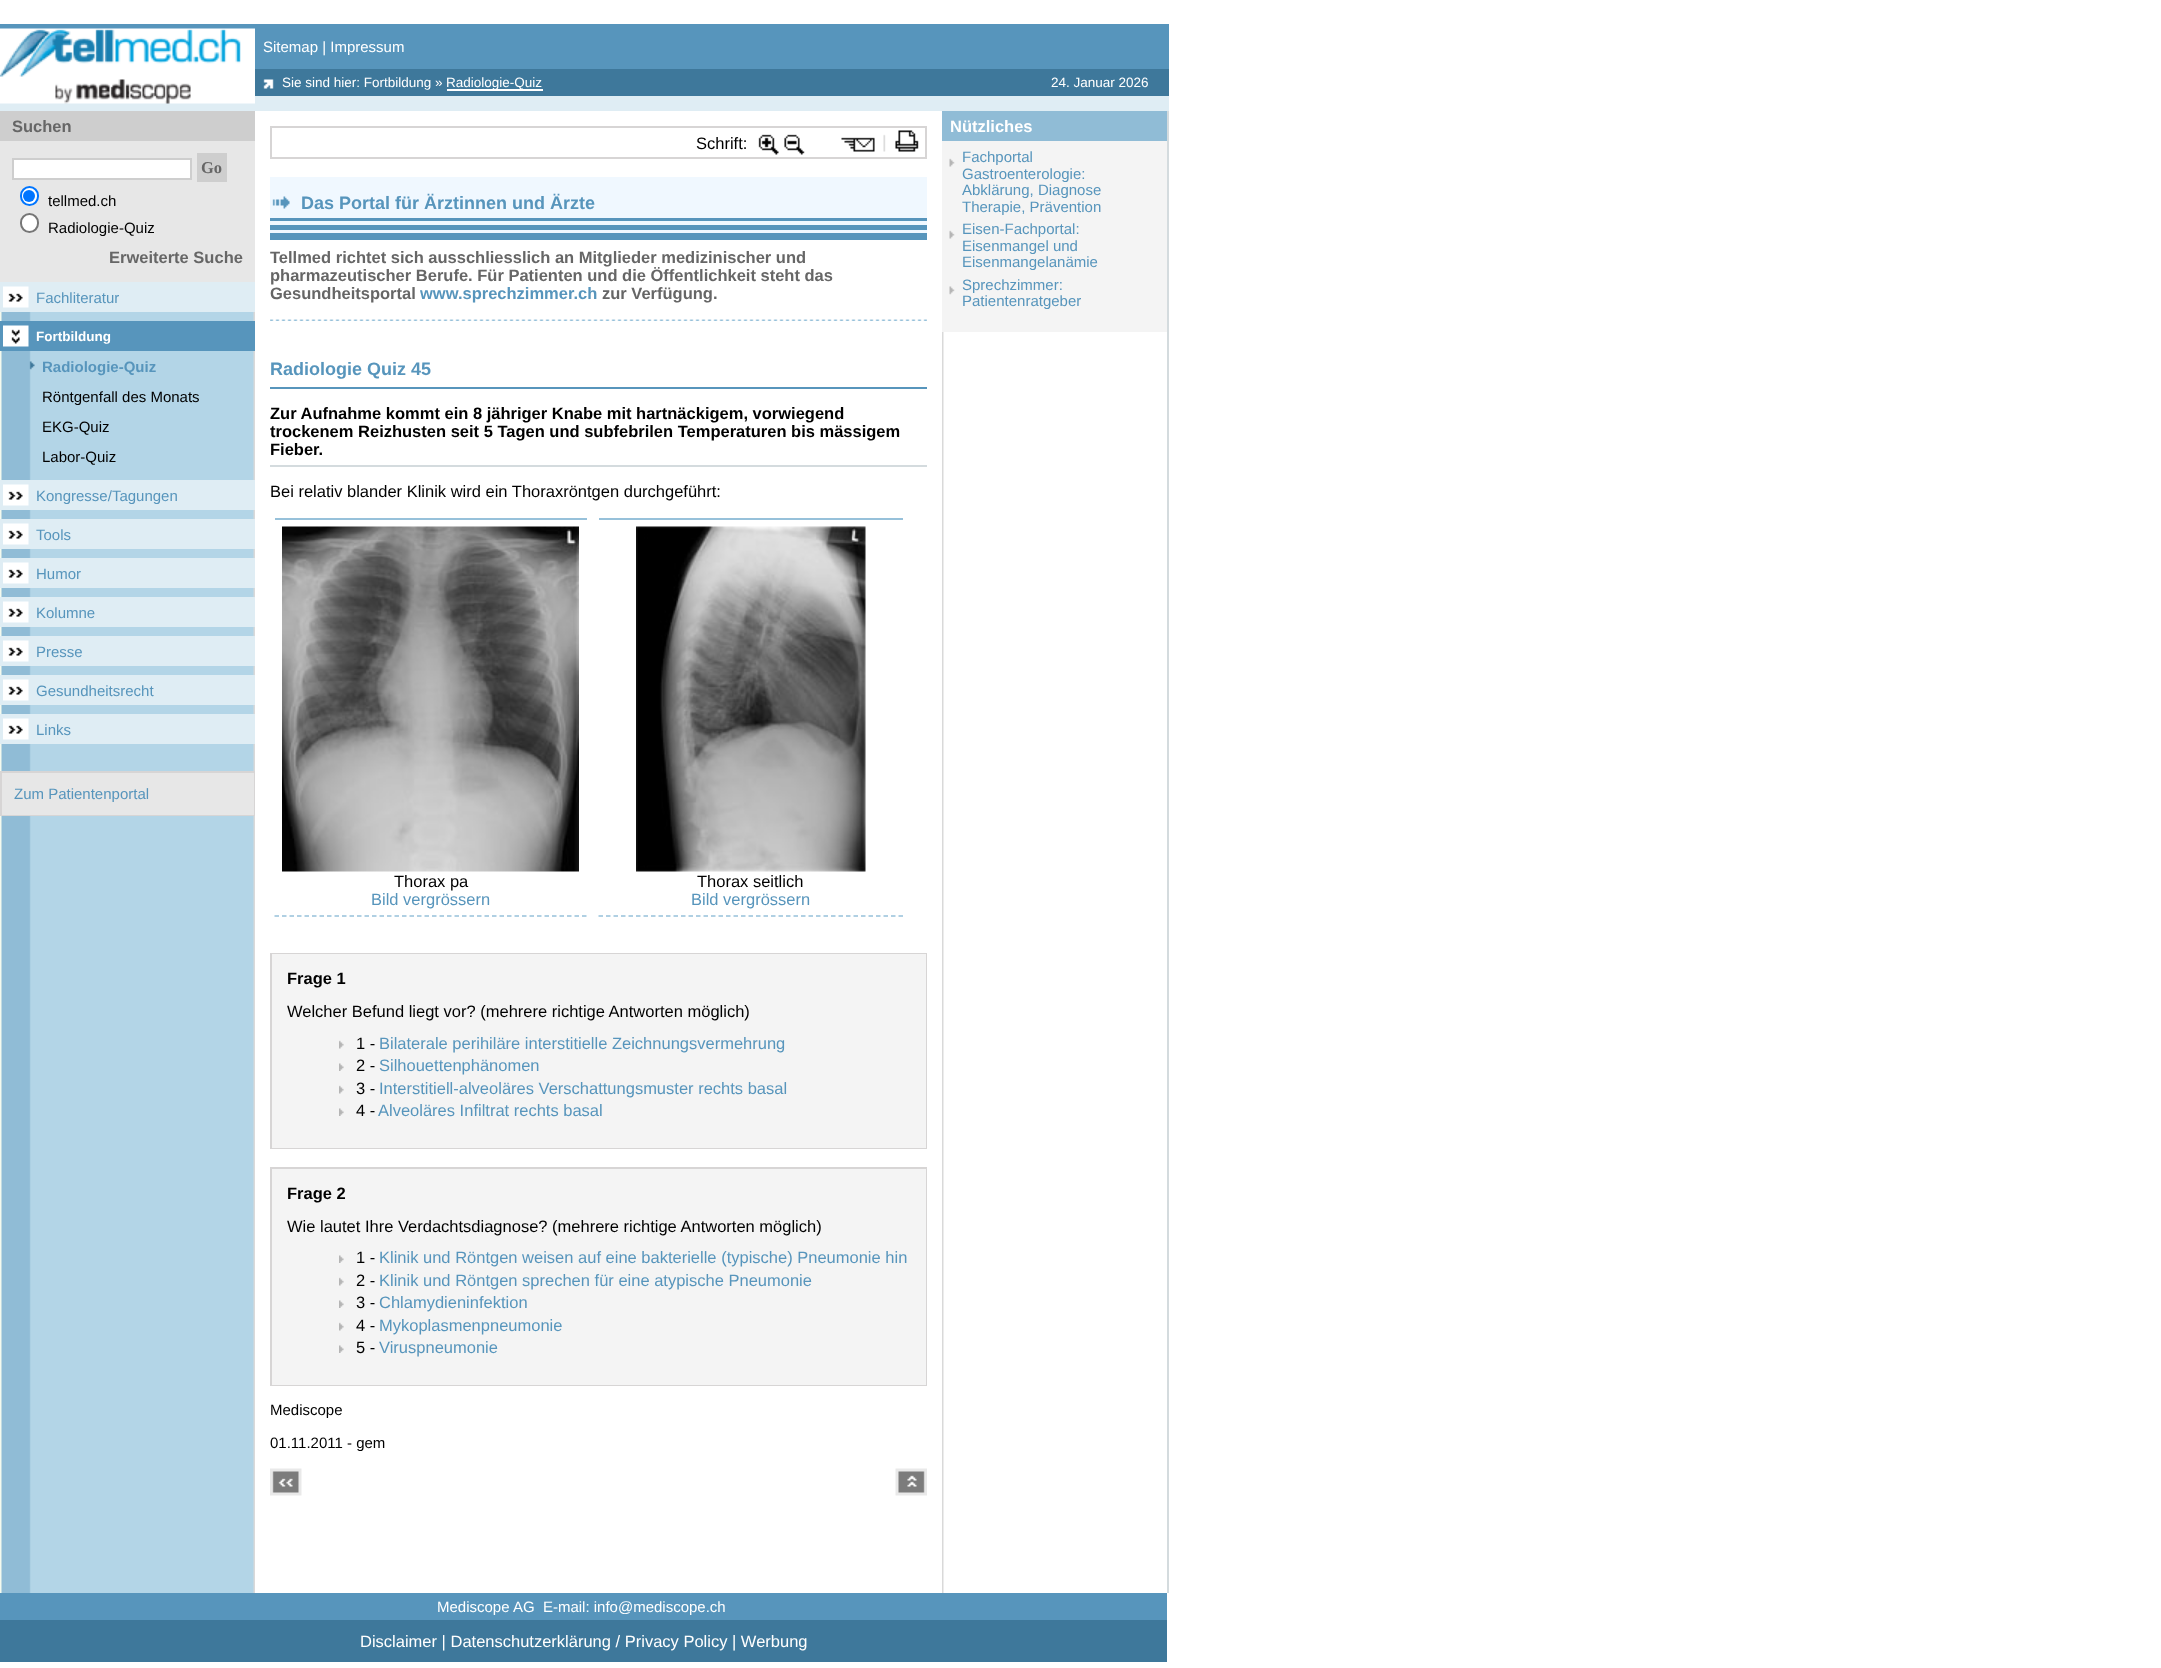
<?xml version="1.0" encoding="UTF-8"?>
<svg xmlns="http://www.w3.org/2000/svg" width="2161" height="1668">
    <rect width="100%" height="100%" fill="#FFFFFF"/>
    <rect x="0" y="24" width="1169" height="45" fill="#5795BC"/>
    <rect x="0" y="96" width="1169" height="15" fill="#DFEDF4"/>
    <image x="0" y="28" width="255" height="76" href="img_01.png"/>
    <text x="263" y="52" font-family="Liberation Sans" font-size="15" fill="#FFFFFF">Sitemap | Impressum</text>
    <rect x="255" y="69" width="914" height="27" fill="#3E789B"/>
    <image x="263" y="79" width="11" height="10" href="img_02.png"/>
    <text x="282" y="87" font-family="Liberation Sans" font-size="13.5" fill="#FFFFFF">Sie sind hier: Fortbildung »</text>
    <rect x="447" y="89" width="96" height="2" fill="#FFFFFF"/>
    <text x="446" y="87" font-family="Liberation Sans" font-size="13.5" fill="#FFFFFF">Radiologie-Quiz</text>
    <text x="1051" y="87" font-family="Liberation Sans" font-size="13.5" fill="#FFFFFF">24. Januar 2026</text>
    <image x="0" y="312" width="255" height="1281" href="img_03.png"/>
    <rect x="0" y="141" width="255" height="141" fill="#E7E7E7"/>
    <rect x="0" y="111" width="255" height="30" fill="#CECECE"/>
    <text x="12" y="132" font-family="Liberation Sans" font-size="16.5" font-weight="700" fill="#666666">Suchen</text>
    <rect x="13" y="159" width="178" height="20" fill="#FFFFFF" stroke="#CECECE" stroke-width="2"/>
    <rect x="197" y="153" width="30" height="29" fill="#CECECE"/>
    <text x="201" y="173" font-family="Liberation Serif" font-size="16.5" font-weight="700" fill="#666666">Go</text>
    <rect x="21" y="187" width="17" height="18" rx="8.5" fill="#FFFFFF" stroke="#0075FF" stroke-width="2"/>
    <circle cx="29" cy="196" r="6" fill="#0075FF"/>
    <text x="48" y="206" font-family="Liberation Sans" font-size="15" fill="#000000">tellmed.ch</text>
    <rect x="21" y="214" width="17" height="18" rx="8.5" fill="#FFFFFF" stroke="#767676" stroke-width="2"/>
    <text x="48" y="233" font-family="Liberation Sans" font-size="15" fill="#000000">Radiologie-Quiz</text>
    <text x="109" y="263" font-family="Liberation Sans" font-size="16.5" font-weight="700" fill="#666666">Erweiterte Suche</text>
    <rect x="0" y="282" width="255" height="30" fill="#DFEDF4"/>
    <image x="3" y="286" width="26" height="22" href="img_04.png"/>
    <text x="36" y="303" font-family="Liberation Sans" font-size="15" fill="#5795BC">Fachliteratur</text>
    <rect x="0" y="321" width="255" height="30" fill="#5795BC"/>
    <image x="3" y="325" width="26" height="22" href="img_05.png"/>
    <text x="36" y="341" font-family="Liberation Sans" font-size="13.5" font-weight="700" fill="#FFFFFF">Fortbildung</text>
    <image x="29" y="361" width="6" height="9" href="img_06.png"/>
    <text x="42" y="372" font-family="Liberation Sans" font-size="15" font-weight="700" fill="#5795BC">Radiologie-Quiz</text>
    <text x="42" y="402" font-family="Liberation Sans" font-size="15" fill="#000000">Röntgenfall des Monats</text>
    <text x="42" y="432" font-family="Liberation Sans" font-size="15" fill="#000000">EKG-Quiz</text>
    <text x="42" y="462" font-family="Liberation Sans" font-size="15" fill="#000000">Labor-Quiz</text>
    <rect x="0" y="480" width="255" height="30" fill="#DFEDF4"/>
    <image x="3" y="484" width="26" height="22" href="img_04.png"/>
    <text x="36" y="501" font-family="Liberation Sans" font-size="15" fill="#5795BC">Kongresse/Tagungen</text>
    <rect x="0" y="519" width="255" height="30" fill="#DFEDF4"/>
    <image x="3" y="523" width="26" height="22" href="img_04.png"/>
    <text x="36" y="540" font-family="Liberation Sans" font-size="15" fill="#5795BC">Tools</text>
    <rect x="0" y="558" width="255" height="30" fill="#DFEDF4"/>
    <image x="3" y="562" width="26" height="22" href="img_04.png"/>
    <text x="36" y="579" font-family="Liberation Sans" font-size="15" fill="#5795BC">Humor</text>
    <rect x="0" y="597" width="255" height="30" fill="#DFEDF4"/>
    <image x="3" y="601" width="26" height="22" href="img_04.png"/>
    <text x="36" y="618" font-family="Liberation Sans" font-size="15" fill="#5795BC">Kolumne</text>
    <rect x="0" y="636" width="255" height="30" fill="#DFEDF4"/>
    <image x="3" y="640" width="26" height="22" href="img_04.png"/>
    <text x="36" y="657" font-family="Liberation Sans" font-size="15" fill="#5795BC">Presse</text>
    <rect x="0" y="675" width="255" height="30" fill="#DFEDF4"/>
    <image x="3" y="679" width="26" height="22" href="img_04.png"/>
    <text x="36" y="696" font-family="Liberation Sans" font-size="15" fill="#5795BC">Gesundheitsrecht</text>
    <rect x="0" y="714" width="255" height="30" fill="#DFEDF4"/>
    <image x="3" y="718" width="26" height="22" href="img_04.png"/>
    <text x="36" y="735" font-family="Liberation Sans" font-size="15" fill="#5795BC">Links</text>
    <rect x="1" y="772" width="253" height="43" fill="none" stroke="#D7D5D5" stroke-width="2"/>
    <rect x="2" y="773" width="252" height="42" fill="#E7E7E7"/>
    <text x="14" y="799" font-family="Liberation Sans" font-size="15" fill="#5795BC">Zum Patientenportal</text>
    <rect x="271" y="127" width="655" height="31" fill="none" stroke="#D7D5D5" stroke-width="2"/>
    <text x="696" y="149" font-family="Liberation Sans" font-size="16.5" fill="#000000">Schrift:</text>
    <image x="758" y="134" width="21" height="21" href="img_07.png"/>
    <image x="784" y="134" width="21" height="21" href="img_08.png"/>
    <image x="841" y="137" width="34" height="15" href="img_09.png"/>
    <image x="883" y="134" width="3" height="18" href="img_10.png"/>
    <image x="895" y="130" width="24" height="22" href="img_11.png"/>
    <rect x="270" y="177" width="657" height="56" fill="#F0F8FF"/>
    <image x="272" y="196" width="18" height="13" href="img_12.png"/>
    <text x="301" y="209" font-family="Liberation Sans" font-size="18" font-weight="700" fill="#5795BC">Das Portal für Ärztinnen und Ärzte</text>
    <rect x="270" y="218" width="657" height="3" fill="#5795BC"/>
    <rect x="270" y="225" width="657" height="5" fill="#5795BC"/>
    <rect x="270" y="233" width="657" height="7" fill="#5795BC"/>
    <text font-family="Liberation Sans" font-size="16.5" font-weight="700" fill="#666666">
        <tspan x="270" y="263">Tellmed richtet sich ausschliesslich an Mitglieder medizinischer und</tspan>
        <tspan x="270" y="281">pharmazeutischer Berufe. Für Patienten und die Öffentlichkeit steht das</tspan>
        <tspan x="270" y="299">Gesundheitsportal</tspan>
    </text>
    <text x="420" y="299" font-family="Liberation Sans" font-size="16.5" font-weight="700" fill="#5795BC">www.sprechzimmer.ch</text>
    <text x="602" y="299" font-family="Liberation Sans" font-size="16.5" font-weight="700" fill="#666666">zur Verfügung.</text>
    <image x="270" y="319" width="657" height="2" href="img_13.png"/>
    <rect x="270" y="387" width="657" height="2" fill="#5795BC"/>
    <text x="270" y="375" font-family="Liberation Sans" font-size="18" font-weight="700" fill="#5795BC">Radiologie Quiz 45</text>
    <rect x="270" y="465" width="657" height="2" fill="#D4DBDE"/>
    <text font-family="Liberation Sans" font-size="16.5" font-weight="700" fill="#000000">
        <tspan x="270" y="419">Zur Aufnahme kommt ein 8 jähriger Knabe mit hartnäckigem, vorwiegend</tspan>
        <tspan x="270" y="437">trockenem Reizhusten seit 5 Tagen und subfebrilen Temperaturen bis mässigem</tspan>
        <tspan x="270" y="455">Fieber.</tspan>
    </text>
    <text x="270" y="497" font-family="Liberation Sans" font-size="16.5" fill="#000000">Bei relativ blander Klinik wird ein Thoraxröntgen durchgeführt:</text>
    <rect x="275" y="518" width="312" height="2" fill="#97C1DA"/>
    <path d="M 274.5 916 H 586.5" fill="none" stroke="#97C1DA" stroke-width="1.5" stroke-dasharray="4.5 3"/>
    <image x="282" y="526" width="297" height="346" href="img_14.png"/>
    <text x="394" y="887" font-family="Liberation Sans" font-size="16.5" fill="#000000">Thorax pa</text>
    <text x="371" y="905" font-family="Liberation Sans" font-size="16.5" fill="#5795BC">Bild vergrössern</text>
    <rect x="599" y="518" width="304" height="2" fill="#97C1DA"/>
    <path d="M 598.5 916 H 903" fill="none" stroke="#97C1DA" stroke-width="1.5" stroke-dasharray="4.5 3"/>
    <image x="636" y="526" width="230" height="346" href="img_15.png"/>
    <text x="697" y="887" font-family="Liberation Sans" font-size="16.5" fill="#000000">Thorax seitlich</text>
    <text x="691" y="905" font-family="Liberation Sans" font-size="16.5" fill="#5795BC">Bild vergrössern</text>
    <rect x="271" y="954" width="655" height="194" fill="none" stroke="#D7D5D5" stroke-width="2"/>
    <rect x="272" y="954" width="654" height="194" fill="#F4F4F4"/>
    <text x="287" y="984" font-family="Liberation Sans" font-size="16.5" font-weight="700" fill="#000000">Frage 1</text>
    <text x="287" y="1017" font-family="Liberation Sans" font-size="16.5" fill="#000000">Welcher Befund liegt vor? (mehrere richtige Antworten möglich)</text>
    <image x="339" y="1040" width="5" height="9" href="img_16.png"/>
    <text x="356" y="1049" font-family="Liberation Sans" font-size="16.5" fill="#000000">1 -</text>
    <text x="379" y="1049" font-family="Liberation Sans" font-size="16.5" fill="#5795BC">Bilaterale perihiläre interstitielle Zeichnungsvermehrung</text>
    <image x="339" y="1063" width="5" height="8" href="img_17.png"/>
    <text x="356" y="1071" font-family="Liberation Sans" font-size="16.5" fill="#000000">2 -</text>
    <text x="379" y="1071" font-family="Liberation Sans" font-size="16.5" fill="#5795BC">Silhouettenphänomen</text>
    <image x="339" y="1085" width="5" height="9" href="img_16.png"/>
    <text x="356" y="1094" font-family="Liberation Sans" font-size="16.5" fill="#000000">3 -</text>
    <text x="379" y="1094" font-family="Liberation Sans" font-size="16.5" fill="#5795BC">Interstitiell-alveoläres Verschattungsmuster rechts basal</text>
    <image x="339" y="1108" width="5" height="8" href="img_17.png"/>
    <text x="356" y="1116" font-family="Liberation Sans" font-size="16.5" fill="#000000">4 -</text>
    <text x="378" y="1116" font-family="Liberation Sans" font-size="16.5" fill="#5795BC">Alveoläres Infiltrat rechts basal</text>
    <rect x="271" y="1168" width="655" height="217" fill="none" stroke="#D7D5D5" stroke-width="2"/>
    <rect x="272" y="1169" width="654" height="216" fill="#F4F4F4"/>
    <text x="287" y="1199" font-family="Liberation Sans" font-size="16.5" font-weight="700" fill="#000000">Frage 2</text>
    <text x="287" y="1232" font-family="Liberation Sans" font-size="16.5" fill="#000000">Wie lautet Ihre Verdachtsdiagnose? (mehrere richtige Antworten möglich)</text>
    <image x="339" y="1255" width="5" height="8" href="img_17.png"/>
    <text x="356" y="1263" font-family="Liberation Sans" font-size="16.5" fill="#000000">1 -</text>
    <text x="379" y="1263" font-family="Liberation Sans" font-size="16.5" fill="#5795BC">Klinik und Röntgen weisen auf eine bakterielle (typische) Pneumonie hin</text>
    <image x="339" y="1277" width="5" height="9" href="img_16.png"/>
    <text x="356" y="1286" font-family="Liberation Sans" font-size="16.5" fill="#000000">2 -</text>
    <text x="379" y="1286" font-family="Liberation Sans" font-size="16.5" fill="#5795BC">Klinik und Röntgen sprechen für eine atypische Pneumonie</text>
    <image x="339" y="1300" width="5" height="8" href="img_17.png"/>
    <text x="356" y="1308" font-family="Liberation Sans" font-size="16.5" fill="#000000">3 -</text>
    <text x="379" y="1308" font-family="Liberation Sans" font-size="16.5" fill="#5795BC">Chlamydieninfektion</text>
    <image x="339" y="1322" width="5" height="9" href="img_16.png"/>
    <text x="356" y="1331" font-family="Liberation Sans" font-size="16.5" fill="#000000">4 -</text>
    <text x="379" y="1331" font-family="Liberation Sans" font-size="16.5" fill="#5795BC">Mykoplasmenpneumonie</text>
    <image x="339" y="1345" width="5" height="8" href="img_17.png"/>
    <text x="356" y="1353" font-family="Liberation Sans" font-size="16.5" fill="#000000">5 -</text>
    <text x="379" y="1353" font-family="Liberation Sans" font-size="16.5" fill="#5795BC">Viruspneumonie</text>
    <text x="270" y="1415" font-family="Liberation Sans" font-size="15" fill="#000000">Mediscope</text>
    <text x="270" y="1448" font-family="Liberation Sans" font-size="15" fill="#000000">01.11.2011 - gem</text>
    <image x="270" y="1468" width="32" height="28" href="img_18.png"/>
    <image x="895" y="1468" width="32" height="28" href="img_19.png"/>
    <image x="942" y="332" width="2" height="1261" href="img_20.png"/>
    <rect x="942" y="141" width="225" height="191" fill="#F4F4F4"/>
    <rect x="942" y="111" width="225" height="30" fill="#90BCD6"/>
    <text x="950" y="132" font-family="Liberation Sans" font-size="16.5" font-weight="700" fill="#FFFFFF">Nützliches</text>
    <image x="949" y="158" width="6" height="9" href="img_21.png"/>
    <text font-family="Liberation Sans" font-size="15" fill="#5795BC">
        <tspan x="962" y="162">Fachportal</tspan>
        <tspan x="962" y="179">Gastroenterologie:</tspan>
        <tspan x="962" y="195">Abklärung, Diagnose</tspan>
        <tspan x="962" y="212">Therapie, Prävention</tspan>
    </text>
    <image x="949" y="230" width="6" height="9" href="img_21.png"/>
    <text font-family="Liberation Sans" font-size="15" fill="#5795BC">
        <tspan x="962" y="234">Eisen-Fachportal:</tspan>
        <tspan x="962" y="251">Eisenmangel und</tspan>
        <tspan x="962" y="267">Eisenmangelanämie</tspan>
    </text>
    <image x="949" y="286" width="6" height="9" href="img_22.png"/>
    <text font-family="Liberation Sans" font-size="15" fill="#5795BC">
        <tspan x="962" y="290">Sprechzimmer:</tspan>
        <tspan x="962" y="306">Patientenratgeber</tspan>
    </text>
    <rect x="1167" y="111" width="2" height="1482" fill="#D4DBDE"/>
    <rect x="0" y="1593" width="1167" height="27" fill="#5795BC"/>
    <text x="437" y="1612" font-family="Liberation Sans" font-size="15" fill="#FFFFFF" xml:space="preserve">Mediscope AG  E-mail: info@mediscope.ch</text>
    <rect x="0" y="1620" width="1167" height="42" fill="#3E789B"/>
    <text x="360" y="1647" font-family="Liberation Sans" font-size="16.5" fill="#FFFFFF">Disclaimer | Datenschutzerklärung / Privacy Policy | Werbung</text>
</svg>
